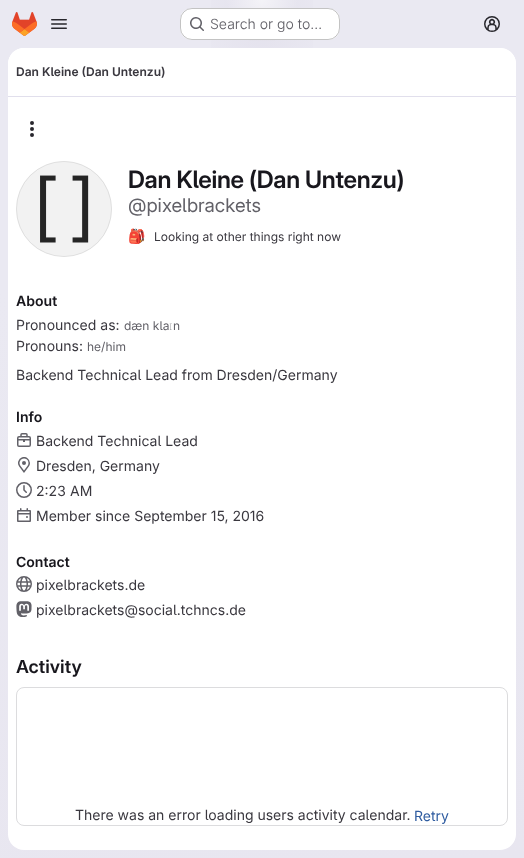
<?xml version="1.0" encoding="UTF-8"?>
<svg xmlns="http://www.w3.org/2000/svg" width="524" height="858">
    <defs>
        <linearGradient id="g1" gradientUnits="userSpaceOnUse" x1="343" y1="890" x2="181" y2="-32"><stop offset="0" stop-color="#E8E6F0"/><stop offset="0.7" stop-color="#EAE9F2"/></linearGradient>
        <radialGradient id="g2" gradientUnits="userSpaceOnUse" cx="0" cy="0" r="1" gradientTransform="matrix(262 0 0 858 262 0)"><stop offset="0" stop-color="#E4E2ED"/><stop offset="0.27" stop-color="#E4E2ED" stop-opacity="0"/></radialGradient>
        <radialGradient id="g3" gradientUnits="userSpaceOnUse" cx="0" cy="0" r="1" gradientTransform="matrix(262 0 0 858 262 0)"><stop offset="0" stop-color="#E4E2EC"/><stop offset="0.19" stop-color="#E4E2EC" stop-opacity="0"/></radialGradient>
        <radialGradient id="g4" gradientUnits="userSpaceOnUse" cx="262" cy="0" r="897"><stop offset="0" stop-color="#FFFFFF" stop-opacity="0.6"/><stop offset="0.04" stop-color="#FFFFFF" stop-opacity="0"/></radialGradient>
    </defs>
    <rect width="100%" height="100%" fill="#FFFFFF"/>
    <rect x="0" y="0" width="524" height="858" fill="url(#g1)"/>
    <rect x="211" y="0" width="102" height="48" fill="url(#g2)"/>
    <rect x="249" y="11" width="26" height="30" fill="url(#g3)"/>
    <rect x="227" y="0" width="70" height="8" fill="url(#g4)"/>
    <image x="12" y="12" width="25" height="24" href="img_01.png"/>
    <image x="51" y="19" width="16" height="10" href="img_02.png"/>
    <rect x="180" y="8" width="160" height="32" rx="12" fill="#FFFFFF"/>
    <rect x="180.5" y="8.5" width="159" height="31" rx="11.5" fill="none" stroke="#050506" stroke-opacity="0.24"/>
    <image x="190" y="17" width="14" height="14" href="img_03.png"/>
    <text x="210" y="29" font-family="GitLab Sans" font-size="14" font-weight="300" fill="#626168">Search or go to…</text>
    <image x="484" y="16" width="16" height="16" href="img_04.png"/>
    <rect x="8" y="48" width="508" height="802" rx="16" fill="#FFFFFF"/>
    <path d="M 24 48 H 500 C 509 48 516 55 516 64 V 97 H 8 V 64 C 8 55 15 48 24 48 Z" fill="#FFFFFF"/>
    <rect x="8" y="96" width="508" height="1" fill="#E1DFEC"/>
    <text x="16" y="76" font-family="'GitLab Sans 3'" font-size="12" font-weight="600" fill="#3A383F">Dan Kleine (Dan Untenzu)</text>
    <image x="30" y="121" width="4" height="16" href="img_05.png"/>
    <image x="16" y="161" width="96" height="96" href="img_06.png"/>
    <circle cx="64" cy="209" r="47.5" fill="none" stroke="#050506" stroke-opacity="0.08"/>
    <text x="128" y="188" font-family="GitLab Sans" font-size="24" font-weight="600" letter-spacing="-0.25" fill="#18171D">Dan Kleine (Dan Untenzu)</text>
    <text x="128" y="212" font-family="GitLab Sans" font-size="19" fill="#626168">@pixelbrackets</text>
    <text x="128" y="241" font-family="Noto Color Emoji" font-size="14" fill="#3A383F">🎒</text>
    <text x="154" y="241" font-family="'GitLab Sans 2'" font-size="12" fill="#3A383F">Looking at other things right now</text>
    <text x="16" y="306" font-family="'GitLab Sans 3'" font-size="14" font-weight="600" fill="#18171D">About</text>
    <text x="16" y="330" font-family="'GitLab Sans 2'" font-size="14" fill="#3A383F">Pronounced as:</text>
    <text x="124" y="330" font-family="'GitLab Sans 2'" font-size="12" fill="#626168">dæn kla</text>
    <text x="169" y="330" font-family="Noto Sans" font-size="12" font-weight="100" fill="#626168">ɪ</text>
    <text x="173" y="330" font-family="'GitLab Sans 2'" font-size="12" fill="#626168">n</text>
    <text x="16" y="351" font-family="'GitLab Sans 2'" font-size="14" fill="#3A383F">Pronouns:</text>
    <text x="87" y="351" font-family="'GitLab Sans 2'" font-size="12" fill="#626168">he/him</text>
    <text x="16" y="380" font-family="'GitLab Sans 2'" font-size="14" fill="#3A383F">Backend Technical Lead from Dresden/Germany</text>
    <text x="16" y="422" font-family="'GitLab Sans 3'" font-size="14" font-weight="600" fill="#18171D">Info</text>
    <image x="17" y="433" width="14" height="14" href="img_07.png"/>
    <text x="36" y="446" font-family="'GitLab Sans 2'" font-size="14" fill="#3A383F">Backend Technical Lead</text>
    <image x="18" y="457" width="12" height="16" href="img_08.png"/>
    <text x="36" y="471" font-family="'GitLab Sans 2'" font-size="14" fill="#3A383F">Dresden, Germany</text>
    <image x="16" y="482" width="16" height="16" href="img_09.png"/>
    <text x="36" y="496" font-family="'GitLab Sans 2'" font-size="14" fill="#3A383F">2:23 AM</text>
    <image x="17" y="508" width="14" height="14" href="img_10.png"/>
    <text x="36" y="521" font-family="'GitLab Sans 2'" font-size="14" fill="#3A383F">Member since September 15, 2016</text>
    <text x="16" y="567" font-family="'GitLab Sans 3'" font-size="14" font-weight="600" fill="#18171D">Contact</text>
    <image x="16" y="576" width="16" height="16" href="img_11.png"/>
    <text x="36" y="590" font-family="'GitLab Sans 2'" font-size="14" fill="#3A383F">pixelbrackets.de</text>
    <image x="16" y="601" width="16" height="16" href="img_12.png"/>
    <text x="36" y="615" font-family="'GitLab Sans 2'" font-size="14" fill="#3A383F">pixelbrackets@social.tchncs.de</text>
    <text x="16" y="673" font-family="'GitLab Sans 2'" font-size="18" font-weight="600" fill="#18171D">Activity</text>
    <rect x="16.5" y="687.5" width="491" height="138" rx="7.5" fill="none" stroke="#DCDCDE"/>
    <text x="75" y="820" font-family="'GitLab Sans 2'" font-size="14" fill="#3A383F">There was an error loading users activity calendar.</text>
    <text x="414" y="821" font-family="'GitLab Sans 2'" font-size="14" fill="#2F5CA0">Retry</text>
</svg>
